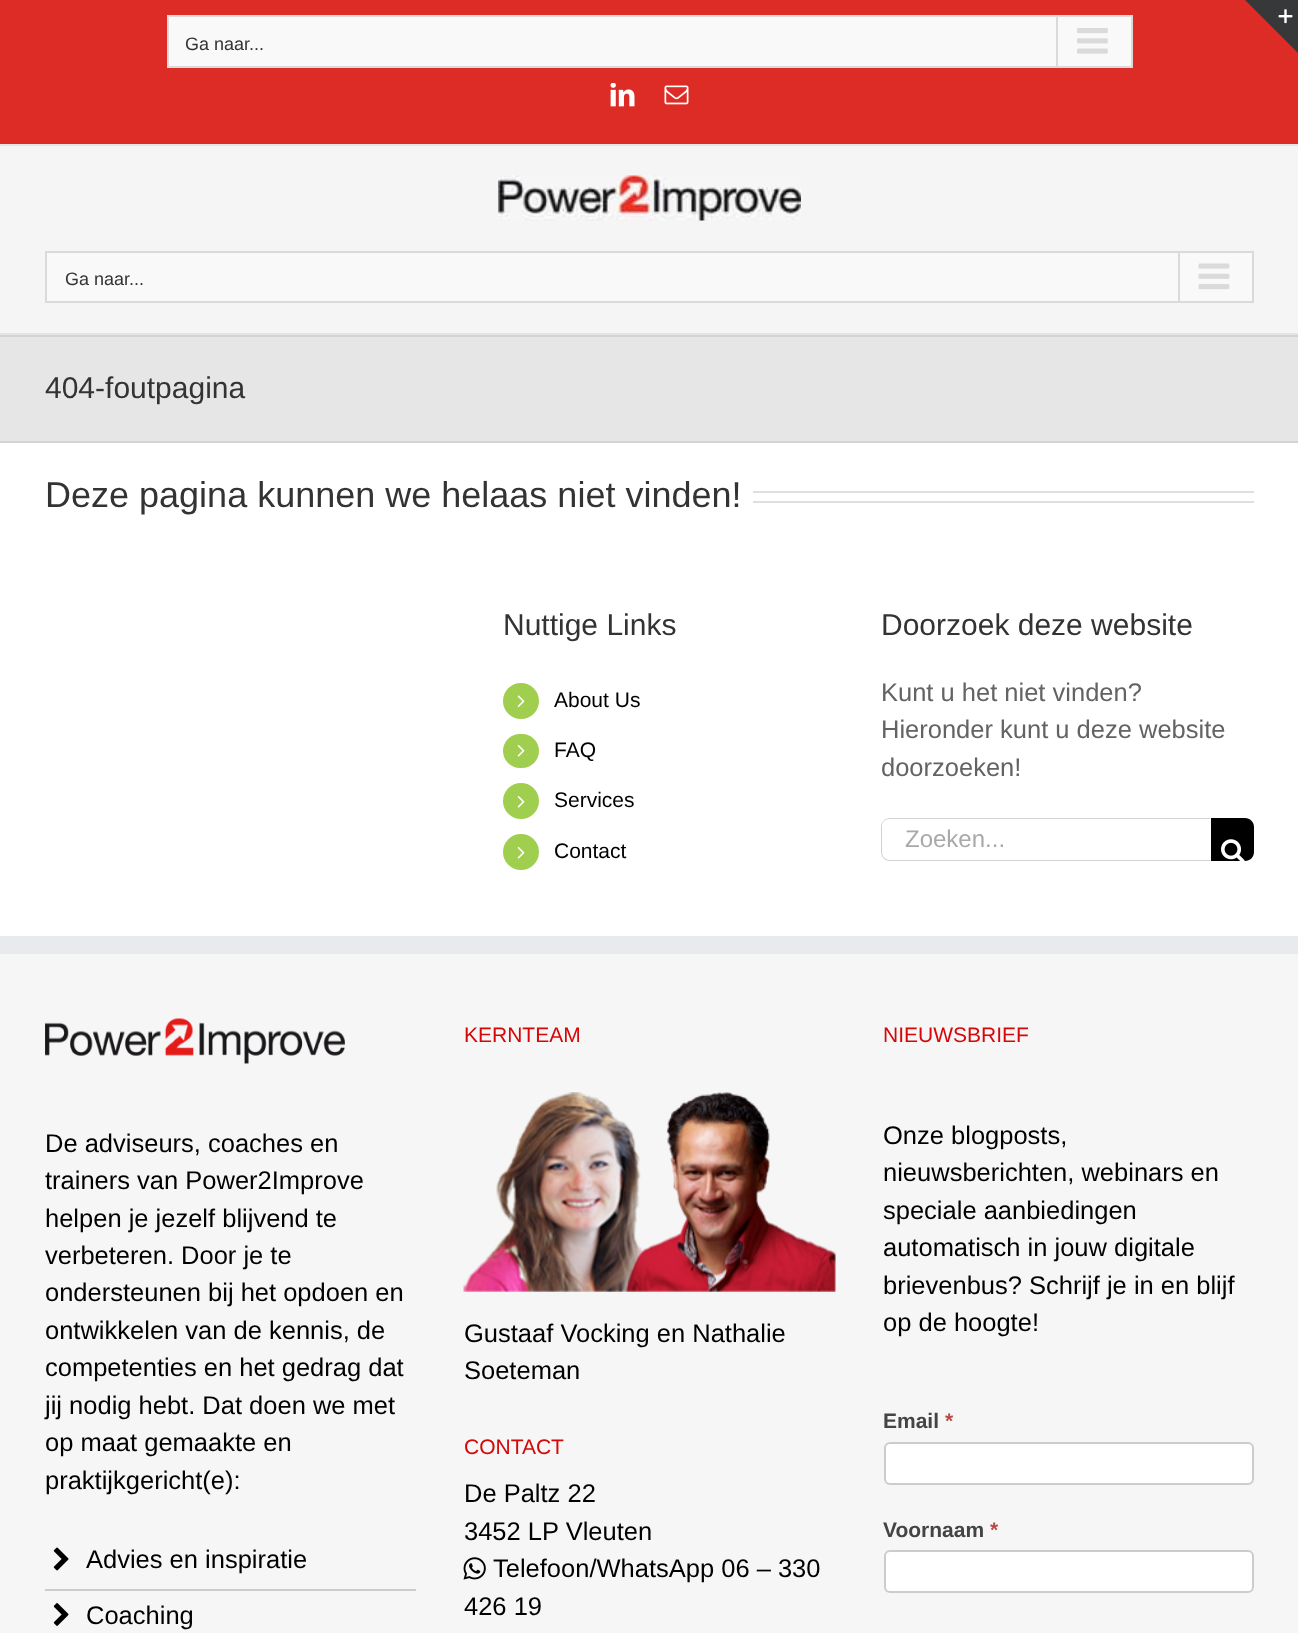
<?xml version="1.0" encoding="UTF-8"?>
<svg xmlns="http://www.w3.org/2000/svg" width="1298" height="1633">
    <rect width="100%" height="100%" fill="#FFFFFF"/>
    <rect x="0" y="0" width="1298" height="144" fill="#DD2C25"/>
    <path d="M 1245 0 H 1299 V 54 Z" fill="#363839"/>
    <image x="1278" y="9" width="15" height="15" href="img_01.png"/>
    <rect x="0" y="144" width="1298" height="2" fill="#E5E5E5"/>
    <rect x="168" y="16" width="964" height="51" fill="#F9F9F9" stroke="#DADADA" stroke-width="2"/>
    <text x="185" y="50" font-family="Liberation Sans" font-size="18" fill="#333333">Ga naar...</text>
    <rect x="1056" y="17" width="2" height="49" fill="#DADADA"/>
    <image x="1077" y="28" width="31" height="26" href="img_02.png"/>
    <image x="610" y="83" width="25" height="24" href="img_03.png"/>
    <image x="664" y="85" width="25" height="20" href="img_04.png"/>
    <rect x="0" y="146" width="1298" height="187" fill="#F5F5F5"/>
    <rect x="0" y="333" width="1298" height="2" fill="#E5E5E5"/>
    <image x="498" y="175" width="303" height="46" href="img_05.png"/>
    <rect x="46" y="252" width="1207" height="50" fill="#F9F9F9" stroke="#DADADA" stroke-width="2"/>
    <text x="65" y="285" font-family="Liberation Sans" font-size="18" fill="#333333">Ga naar...</text>
    <rect x="1178" y="252" width="2" height="50" fill="#DADADA"/>
    <image x="1198" y="263" width="32" height="27" href="img_06.png"/>
    <rect x="0" y="337" width="1298" height="104" fill="#E6E6E6"/>
    <rect x="0" y="335" width="1298" height="2" fill="#D2D3D4"/>
    <rect x="0" y="441" width="1298" height="2" fill="#D2D3D4"/>
    <text x="45" y="398" font-family="Liberation Sans" font-size="30" fill="#333333">404-foutpagina</text>
    <text x="45" y="507" font-family="Liberation Sans" font-size="36" fill="#333333">Deze pagina kunnen we helaas niet vinden!</text>
    <rect x="753" y="491" width="501" height="2" fill="#E0DEDE"/>
    <rect x="753" y="501" width="501" height="2" fill="#E0DEDE"/>
    <text x="503" y="635" font-family="Liberation Sans" font-size="30" fill="#333333">Nuttige Links</text>
    <circle cx="521" cy="701" r="18" fill="#A0CE4E"/>
    <image x="517" y="695" width="8" height="12" href="img_07.png"/>
    <text x="554" y="707" font-family="Liberation Sans" font-size="21" fill="#000000">About Us</text>
    <rect x="503" y="734" width="36" height="34" rx="17" fill="#A0CE4E"/>
    <image x="517" y="745" width="8" height="12" href="img_08.png"/>
    <text x="554" y="757" font-family="Liberation Sans" font-size="21" fill="#000000">FAQ</text>
    <circle cx="521" cy="801" r="18" fill="#A0CE4E"/>
    <image x="517" y="796" width="8" height="12" href="img_08.png"/>
    <text x="554" y="807" font-family="Liberation Sans" font-size="21" fill="#000000">Services</text>
    <circle cx="521" cy="852" r="18" fill="#A0CE4E"/>
    <image x="517" y="847" width="8" height="12" href="img_08.png"/>
    <text x="554" y="858" font-family="Liberation Sans" font-size="21" fill="#000000">Contact</text>
    <text x="881" y="635" font-family="Liberation Sans" font-size="30" fill="#333333">Doorzoek deze website</text>
    <text font-family="Liberation Sans" font-size="25.5" fill="#636363">
        <tspan x="881" y="701">Kunt u het niet vinden?</tspan>
        <tspan x="881" y="738">Hieronder kunt u deze website</tspan>
        <tspan x="881" y="776">doorzoeken!</tspan>
    </text>
    <path d="M 890 818 C 885 818 881 822 881 827 V 852 C 881 857 885 861 890 861 H 1210 V 860 H 890 C 885 860 882 856 882 852 V 826 C 882 822 885 819 890 819 H 1210 V 818 Z" fill="#D2D2D2"/>
    <text x="905" y="847" font-family="Liberation Sans" font-size="24" fill="#AAA9A9">Zoeken...</text>
    <path d="M 1211 818 H 1245 C 1250 818 1254 822 1254 827 V 852 C 1254 857 1250 861 1245 861 H 1211 Z" fill="#000000"/>
    <image x="1221" y="839" width="24" height="22" href="img_09.png"/>
    <rect x="0" y="954" width="1298" height="679" fill="#F6F6F6"/>
    <rect x="0" y="936" width="1298" height="18" fill="#E9EAEE"/>
    <image x="45" y="1018" width="300" height="46" href="img_10.png"/>
    <text font-family="Liberation Sans" font-size="25.5" fill="#000000">
        <tspan x="45" y="1152">De adviseurs, coaches en</tspan>
        <tspan x="45" y="1189">trainers van Power2Improve</tspan>
        <tspan x="45" y="1227">helpen je jezelf blijvend te</tspan>
        <tspan x="45" y="1264">verbeteren. Door je te</tspan>
        <tspan x="45" y="1301">ondersteunen bij het opdoen en</tspan>
        <tspan x="45" y="1339">ontwikkelen van de kennis, de</tspan>
        <tspan x="45" y="1376">competenties en het gedrag dat</tspan>
        <tspan x="45" y="1414">jij nodig hebt. Dat doen we met</tspan>
        <tspan x="45" y="1451">op maat gemaakte en</tspan>
        <tspan x="45" y="1489">praktijkgericht(e):</tspan>
    </text>
    <rect x="45" y="1589" width="371" height="2" fill="#CCCCCC"/>
    <image x="53" y="1547" width="16" height="24" href="img_11.png"/>
    <text x="86" y="1568" font-family="Liberation Sans" font-size="25.5" fill="#000000">Advies en inspiratie</text>
    <image x="53" y="1603" width="16" height="23" href="img_12.png"/>
    <text x="86" y="1624" font-family="Liberation Sans" font-size="25.5" fill="#000000">Coaching</text>
    <text x="464" y="1042" font-family="Liberation Sans" font-size="21" fill="#D60707">KERNTEAM</text>
    <image x="463" y="1092" width="373" height="200" href="img_13.png"/>
    <text font-family="Liberation Sans" font-size="25.5" fill="#000000">
        <tspan x="464" y="1342">Gustaaf Vocking en Nathalie</tspan>
        <tspan x="464" y="1379">Soeteman</tspan>
    </text>
    <text x="464" y="1454" font-family="Liberation Sans" font-size="21" fill="#D60707">CONTACT</text>
    <text font-family="Liberation Sans" font-size="25.5" fill="#000000">
        <tspan x="464" y="1502">De Paltz 22</tspan>
        <tspan x="464" y="1540">3452 LP Vleuten</tspan>
    </text>
    <image x="463" y="1557" width="23" height="23" href="img_14.png"/>
    <text x="493" y="1577" font-family="Liberation Sans" font-size="25.5" fill="#000000">Telefoon/WhatsApp 06 – 330</text>
    <text x="464" y="1615" font-family="Liberation Sans" font-size="25.5" fill="#000000">426 19</text>
    <text x="883" y="1042" font-family="Liberation Sans" font-size="21" fill="#D60707">NIEUWSBRIEF</text>
    <text font-family="Liberation Sans" font-size="25.5" fill="#000000">
        <tspan x="883" y="1144">Onze blogposts,</tspan>
        <tspan x="883" y="1181">nieuwsberichten, webinars en</tspan>
        <tspan x="883" y="1219">speciale aanbiedingen</tspan>
        <tspan x="883" y="1256">automatisch in jouw digitale</tspan>
        <tspan x="883" y="1294">brievenbus? Schrijf je in en blijf</tspan>
        <tspan x="883" y="1331">op de hoogte!</tspan>
    </text>
    <text x="883" y="1428" font-family="Liberation Sans" font-size="21" font-weight="700" fill="#444444">Email</text>
    <text x="945" y="1428" font-family="Liberation Sans" font-size="21" font-weight="700" fill="#B94A48">*</text>
    <rect x="885" y="1443" width="368" height="41" rx="5" fill="#FFFFFF" stroke="#CCCCCC" stroke-width="2"/>
    <text x="883" y="1537" font-family="Liberation Sans" font-size="21" font-weight="700" fill="#444444">Voornaam</text>
    <text x="990" y="1537" font-family="Liberation Sans" font-size="21" font-weight="700" fill="#B94A48">*</text>
    <rect x="885" y="1551" width="368" height="41" rx="5" fill="#FFFFFF" stroke="#CCCCCC" stroke-width="2"/>
</svg>
